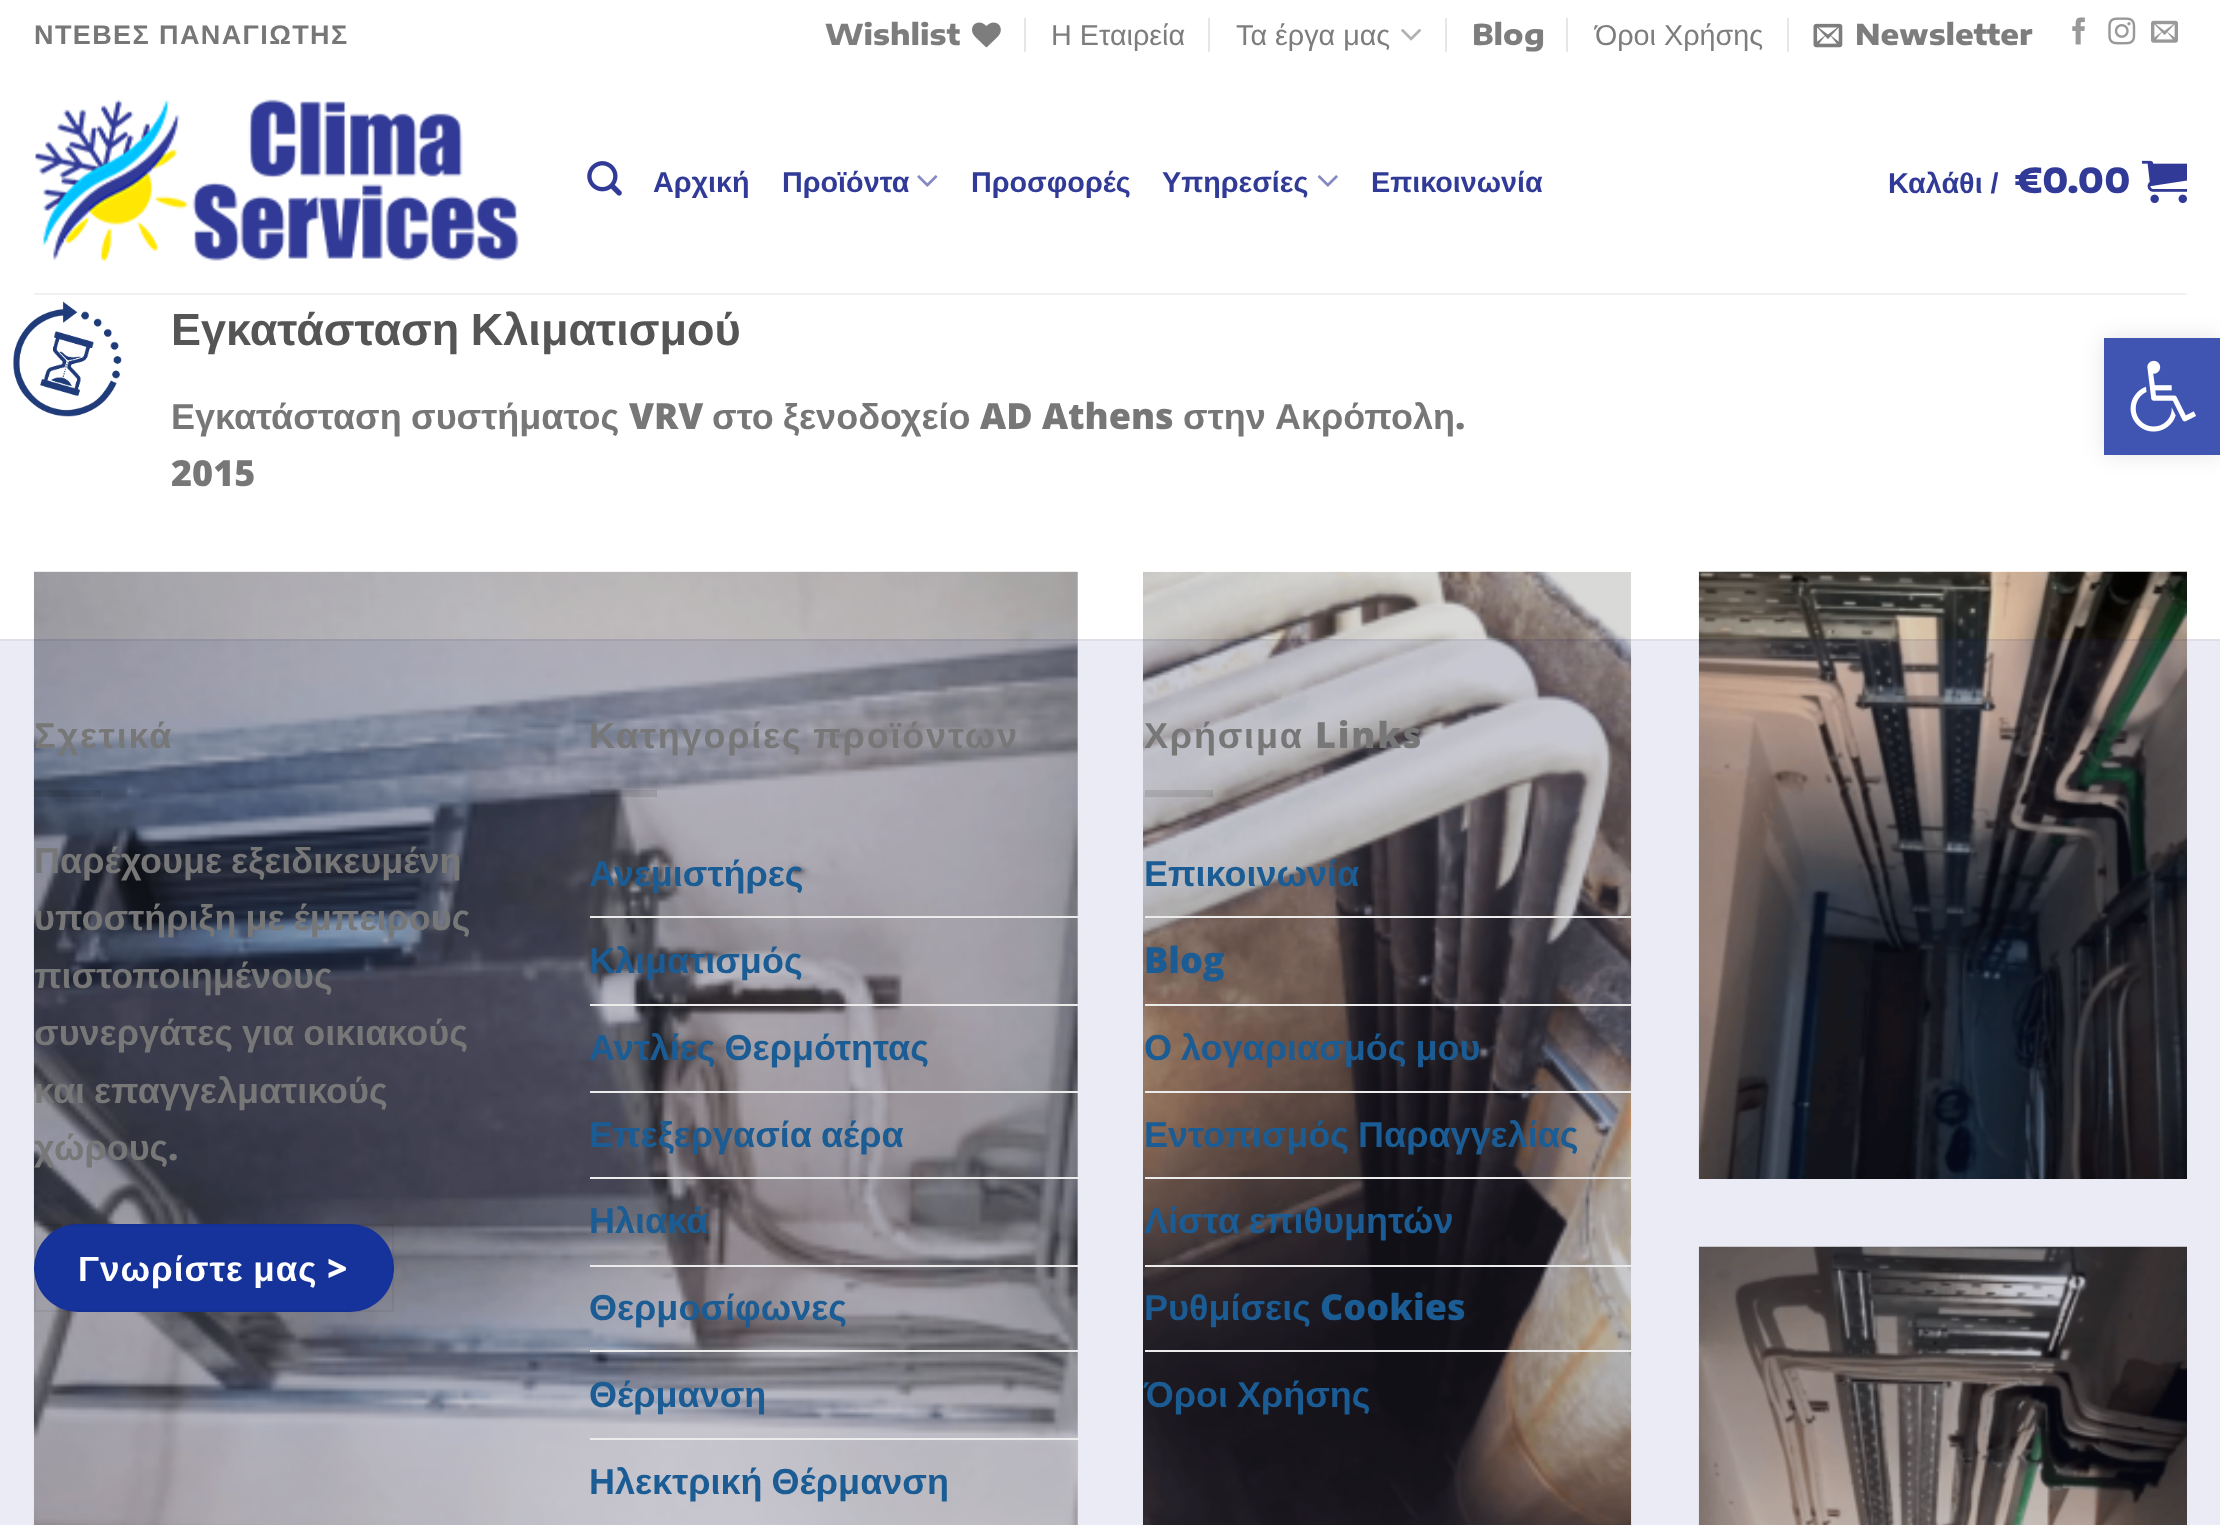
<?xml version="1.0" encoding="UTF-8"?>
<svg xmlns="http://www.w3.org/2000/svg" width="2220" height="1525">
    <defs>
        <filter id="blur1" x="-50%" y="-200%" width="200%" height="500%"><feGaussianBlur stdDeviation="11"/></filter>
    </defs>
    <rect width="100%" height="100%" fill="#FFFFFF"/>
    <rect x="1077" y="572" width="1" height="953" fill="#D9D9D9"/>
    <text x="34" y="44" font-family="Liberation Sans" font-size="27" font-weight="700" letter-spacing="1.4" fill="#777777">ΝΤΕΒΕΣ ΠΑΝΑΓΙΩΤΗΣ</text>
    <text x="825" y="45" font-family="Encode Sans Expanded" font-size="28.75" font-weight="800" fill="#7D7D7D">Wishlist</text>
    <image x="972" y="22" width="29" height="26" href="img_01.png"/>
    <rect x="1024" y="18" width="2" height="34" fill="#E6E6E6"/>
    <text x="1051" y="45" font-family="Liberation Sans" font-size="28.75" fill="#7D7D7D">Η Εταιρεία</text>
    <rect x="1208" y="18" width="2" height="34" fill="#E6E6E6"/>
    <text x="1236" y="45" font-family="Liberation Sans" font-size="28.75" fill="#7D7D7D">Τα έργα μας</text>
    <image x="1401" y="29" width="20" height="12" href="img_02.png"/>
    <rect x="1445" y="18" width="2" height="34" fill="#E6E6E6"/>
    <text x="1472" y="45" font-family="Encode Sans Expanded" font-size="28.75" font-weight="800" fill="#7D7D7D">Blog</text>
    <rect x="1566" y="18" width="2" height="34" fill="#E6E6E6"/>
    <text x="1595" y="45" font-family="Liberation Sans" font-size="28.75" fill="#7D7D7D">Όροι Χρήσης</text>
    <rect x="1787" y="18" width="2" height="34" fill="#E6E6E6"/>
    <image x="1813" y="23" width="30" height="25" href="img_03.png"/>
    <text x="1855" y="45" font-family="Encode Sans Expanded" font-size="28.75" font-weight="800" fill="#7D7D7D">Newsletter</text>
    <image x="2072" y="17" width="13" height="28" href="img_04.png"/>
    <image x="2108" y="17" width="28" height="28" href="img_05.png"/>
    <image x="2151" y="20" width="27" height="23" href="img_06.png"/>
    <image x="35" y="99" width="484" height="162" href="img_07.png"/>
    <image x="587" y="161" width="35" height="35" href="img_08.png"/>
    <text x="653" y="192" font-family="Liberation Sans" font-size="28.75" font-weight="700" fill="#313B97">Αρχική</text>
    <text x="782" y="192" font-family="Liberation Sans" font-size="28.75" font-weight="700" fill="#313B97">Προϊόντα</text>
    <image x="917" y="175" width="21" height="12" href="img_09.png"/>
    <text x="971" y="192" font-family="Liberation Sans" font-size="28.75" font-weight="700" fill="#313B97">Προσφορές</text>
    <text x="1162" y="192" font-family="Liberation Sans" font-size="28.75" font-weight="700" fill="#313B97">Υπηρεσίες</text>
    <image x="1317" y="175" width="21" height="12" href="img_10.png"/>
    <text x="1371" y="192" font-family="Liberation Sans" font-size="28.75" font-weight="700" fill="#313B97">Επικοινωνία</text>
    <text x="1888" y="193" font-family="Liberation Sans" font-size="28.75" font-weight="700" fill="#313B97">Καλάθι /</text>
    <text x="2014" y="193" font-family="Encode Sans Expanded" font-size="34.5" font-weight="800" fill="#313B97">€</text>
    <text x="2042" y="193" font-family="Encode Sans Expanded" font-size="34.5" font-weight="800" fill="#313B97">0.00</text>
    <image x="2142" y="160" width="45" height="44" href="img_11.png"/>
    <rect x="34" y="293" width="2153" height="2" fill="#F1F1F1"/>
    <image x="13" y="301" width="109" height="116" href="img_12.png"/>
    <text x="171" y="345" word-spacing="-1" font-family="Liberation Sans" font-size="45" font-weight="700" fill="#555555">Εγκατάσταση Κλιματισμού</text>
    <text x="171" y="429" font-family="Liberation Sans" font-size="36" font-weight="700" fill="#777777">Εγκατάσταση</text>
    <text x="411" y="429" font-family="Liberation Sans" font-size="36" font-weight="700" fill="#777777">συστήματος</text>
    <text x="629" y="429" font-family="Open Sans" font-size="36" font-weight="800" fill="#777777">VRV</text>
    <text x="712" y="429" font-family="Liberation Sans" font-size="36" font-weight="700" fill="#777777">στο</text>
    <text x="783" y="429" font-family="Liberation Sans" font-size="36" font-weight="700" fill="#777777">ξενοδοχείο</text>
    <text x="980" y="429" font-family="Open Sans" font-size="36" font-weight="800" fill="#777777">AD Athens</text>
    <text x="1183" y="429" font-family="Liberation Sans" font-size="36" font-weight="700" fill="#777777">στην</text>
    <text x="1275" y="429" font-family="Liberation Sans" font-size="36" font-weight="700" fill="#777777">Ακρόπολη</text>
    <text x="1455" y="429" font-family="Open Sans" font-size="36" font-weight="800" fill="#777777">.</text>
    <text x="171" y="486" font-family="Open Sans" font-size="36" font-weight="800" fill="#777777">2015</text>
    <image x="33" y="571" width="1045" height="954" href="img_13.png"/>
    <image x="1143" y="571" width="489" height="954" href="img_14.png"/>
    <image x="1698" y="571" width="489" height="608" href="img_15.png"/>
    <image x="1698" y="1246" width="489" height="279" href="img_16.png"/>
    <rect x="0" y="639" width="2220" height="886" fill="#313B97" fill-opacity="0.1"/>
    <rect x="0" y="639" width="2220" height="2" fill="#000000" fill-opacity="0.05"/>
    <text x="34" y="748" font-family="Liberation Sans" font-size="36" font-weight="700" letter-spacing="1.8" fill="#777777">Σχετικά</text>
    <rect x="34" y="790" width="67" height="7" fill="#000000" fill-opacity="0.1"/>
    <text font-family="Liberation Sans" font-size="36" font-weight="700" fill="#777777">
        <tspan x="34" y="873" word-spacing="-1">Παρέχουμε εξειδικευμένη</tspan>
        <tspan x="34" y="930" word-spacing="-1">υποστήριξη με έμπειρους</tspan>
        <tspan x="34" y="988">πιστοποιημένους</tspan>
        <tspan x="34" y="1045" word-spacing="-1">συνεργάτες για οικιακούς</tspan>
        <tspan x="34" y="1103" word-spacing="-1">και επαγγελματικούς</tspan>
        <tspan x="34" y="1160">χώρους</tspan>
    </text>
    <text x="168" y="1160" font-family="Open Sans" font-size="36" font-weight="800" fill="#777777">.</text>
    <rect x="34" y="1224" width="360" height="88" rx="44" fill="#16339C"/>
    <rect x="35" y="1225" width="358" height="86" fill="none" stroke="#000000" stroke-opacity="0.05" stroke-width="2"/>
    <text x="78" y="1281" word-spacing="-1" font-family="Liberation Sans" font-size="35" font-weight="700" letter-spacing="1" fill="#FFFFFF">Γνωρίστε μας</text>
    <text x="327" y="1281" font-family="Open Sans" font-size="35" font-weight="800" letter-spacing="1" fill="#FFFFFF">&gt;</text>
    <text x="589" y="748" word-spacing="-1" font-family="Liberation Sans" font-size="36" font-weight="700" letter-spacing="1.8" fill="#777777">Κατηγορίες προϊόντων</text>
    <rect x="590" y="790" width="67" height="7" fill="#000000" fill-opacity="0.1"/>
    <text x="589" y="886" font-family="Liberation Sans" font-size="36" font-weight="700" fill="#1A5C93">Ανεμιστήρες</text>
    <rect x="590" y="916" width="488" height="2" fill="#ECECEC"/>
    <text x="589" y="973" font-family="Liberation Sans" font-size="36" font-weight="700" fill="#1A5C93">Κλιματισμός</text>
    <rect x="590" y="1004" width="488" height="2" fill="#ECECEC"/>
    <text x="589" y="1060" word-spacing="-1" font-family="Liberation Sans" font-size="36" font-weight="700" fill="#1A5C93">Αντλίες Θερμότητας</text>
    <rect x="590" y="1091" width="488" height="2" fill="#ECECEC"/>
    <text x="589" y="1147" word-spacing="-1" font-family="Liberation Sans" font-size="36" font-weight="700" fill="#1A5C93">Επεξεργασία αέρα</text>
    <rect x="590" y="1177" width="488" height="2" fill="#ECECEC"/>
    <text x="589" y="1233" font-family="Liberation Sans" font-size="36" font-weight="700" fill="#1A5C93">Ηλιακά</text>
    <rect x="590" y="1265" width="488" height="2" fill="#ECECEC"/>
    <text x="589" y="1320" font-family="Liberation Sans" font-size="36" font-weight="700" fill="#1A5C93">Θερμοσίφωνες</text>
    <rect x="590" y="1350" width="488" height="2" fill="#ECECEC"/>
    <text x="589" y="1407" font-family="Liberation Sans" font-size="36" font-weight="700" fill="#1A5C93">Θέρμανση</text>
    <rect x="590" y="1438" width="488" height="2" fill="#ECECEC"/>
    <text x="589" y="1494" word-spacing="-1" font-family="Liberation Sans" font-size="36" font-weight="700" fill="#1A5C93">Ηλεκτρική Θέρμανση</text>
    <text x="1144" y="748" font-family="Liberation Sans" font-size="36" font-weight="700" letter-spacing="1.8" fill="#777777">Χρήσιμα</text>
    <text x="1315" y="748" font-family="Open Sans" font-size="36" font-weight="800" letter-spacing="1.8" fill="#777777">Links</text>
    <rect x="1145" y="790" width="68" height="7" fill="#000000" fill-opacity="0.1"/>
    <text x="1144" y="886" font-family="Liberation Sans" font-size="36" font-weight="700" fill="#1A5C93">Επικοινωνία</text>
    <rect x="1145" y="916" width="486" height="2" fill="#ECECEC"/>
    <text x="1144" y="973" font-family="Open Sans" font-size="36" font-weight="800" fill="#1A5C93">Blog</text>
    <rect x="1145" y="1004" width="486" height="2" fill="#ECECEC"/>
    <text x="1144" y="1060" word-spacing="-1" font-family="Liberation Sans" font-size="36" font-weight="700" fill="#1A5C93">Ο λογαριασμός μου</text>
    <rect x="1145" y="1091" width="486" height="2" fill="#ECECEC"/>
    <text x="1144" y="1147" word-spacing="-1" font-family="Liberation Sans" font-size="36" font-weight="700" fill="#1A5C93">Εντοπισμός Παραγγελίας</text>
    <rect x="1145" y="1177" width="486" height="2" fill="#ECECEC"/>
    <text x="1144" y="1233" word-spacing="-1" font-family="Liberation Sans" font-size="36" font-weight="700" fill="#1A5C93">Λίστα επιθυμητών</text>
    <rect x="1145" y="1265" width="486" height="2" fill="#ECECEC"/>
    <text x="1144" y="1320" font-family="Liberation Sans" font-size="36" font-weight="700" fill="#1A5C93">Ρυθμίσεις</text>
    <text x="1320" y="1320" font-family="Open Sans" font-size="36" font-weight="800" fill="#1A5C93">Cookies</text>
    <rect x="1145" y="1350" width="486" height="2" fill="#ECECEC"/>
    <text x="1144" y="1407" word-spacing="-1" font-family="Liberation Sans" font-size="36" font-weight="700" fill="#1A5C93">Όροι Χρήσης</text>
    <rect x="2104" y="338" width="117" height="117" fill="#000000" fill-opacity="0.1" filter="url(#blur1)"/>
    <rect x="2104" y="338" width="116" height="117" fill="#4054B2"/>
    <image x="2130" y="360" width="66" height="72" href="img_17.png"/>
</svg>
